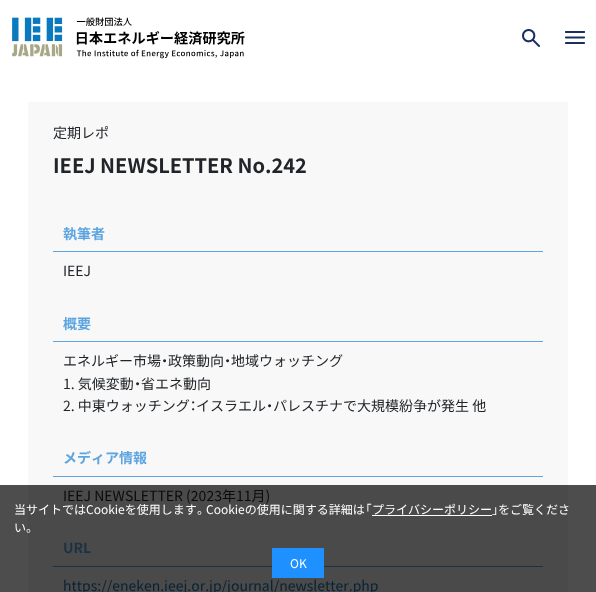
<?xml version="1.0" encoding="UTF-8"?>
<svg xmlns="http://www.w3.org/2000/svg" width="596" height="592">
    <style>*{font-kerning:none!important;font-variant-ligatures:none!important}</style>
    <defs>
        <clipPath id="clip1"><rect x="565" y="31" width="20" height="13"/></clipPath>
    </defs>
    <rect width="100%" height="100%" fill="#FFFFFF"/>
    <rect x="0" y="485" width="596" height="107" fill="#4D4D4D"/>
    <image x="12" y="17" width="233" height="42" href="img_01.png"/>
    <image x="522" y="29" width="18" height="18" href="img_02.png"/>
    <g clip-path="url(#clip1)">
        <path d="M 566 32 H 584" fill="none" stroke="#192F60" stroke-width="2.2" stroke-linecap="round"/>
    </g>
    <path d="M 566 37.5 H 584" fill="none" stroke="#192F60" stroke-width="2.2" stroke-linecap="round"/>
    <g clip-path="url(#clip1)">
        <path d="M 566 43 H 584" fill="none" stroke="#192F60" stroke-width="2.2" stroke-linecap="round"/>
    </g>
    <rect x="28" y="102" width="540" height="383" fill="#F8F8F8"/>
    <rect x="28" y="485" width="540" height="107" fill="#4A4A4A"/>
    <text x="53" y="138" font-family="Noto Sans JP" font-size="14" fill="#212529">定期レポ</text>
    <text x="53" y="173" font-family="Noto Sans JP" font-size="20" font-weight="700" fill="#212529">IEEJ NEWSLETTER No.242</text>
    <rect x="53" y="251" width="490" height="1" fill="#5DA5E0"/>
    <text x="63" y="239" font-family="Noto Sans JP" font-size="14" font-weight="700" fill="#5DA5E0">執筆者</text>
    <text x="63" y="276" font-family="Noto Sans JP" font-size="14" fill="#212529">IEEJ</text>
    <rect x="53" y="341" width="490" height="1" fill="#5DA5E0"/>
    <text x="63" y="329" font-family="Noto Sans JP" font-size="14" font-weight="700" fill="#5DA5E0">概要</text>
    <text x="63" y="366" font-family="Noto Sans JP" font-size="14" fill="#212529">エネルギー市場</text>
    <text x="161" y="366" font-family="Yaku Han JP" font-size="14" fill="#212529">・</text>
    <text x="168" y="366" font-family="Noto Sans JP" font-size="14" fill="#212529">政策動向</text>
    <text x="224" y="366" font-family="Yaku Han JP" font-size="14" fill="#212529">・</text>
    <text x="231" y="366" font-family="Noto Sans JP" font-size="14" fill="#212529">地域ウォッチング</text>
    <text x="63" y="389" font-family="Noto Sans JP" font-size="14" fill="#212529">1. 気候変動</text>
    <text x="134" y="389" font-family="Yaku Han JP" font-size="14" fill="#212529">・</text>
    <text x="141" y="389" font-family="Noto Sans JP" font-size="14" fill="#212529">省エネ動向</text>
    <text x="63" y="411" font-family="Noto Sans JP" font-size="14" fill="#212529">2. 中東ウォッチング</text>
    <text x="190" y="411" font-family="Yaku Han JP" font-size="14" fill="#212529">：</text>
    <text x="196" y="411" font-family="Noto Sans JP" font-size="14" fill="#212529">イスラエル</text>
    <text x="266" y="411" font-family="Yaku Han JP" font-size="14" fill="#212529">・</text>
    <text x="273" y="411" font-family="Noto Sans JP" font-size="14" fill="#212529">パレスチナで大規模紛争が発生 他</text>
    <rect x="53" y="476" width="490" height="1" fill="#5DA5E0"/>
    <text x="63" y="463" font-family="Noto Sans JP" font-size="14" font-weight="700" fill="#5DA5E0">メディア情報</text>
    <text x="63" y="501" font-family="Noto Sans JP" font-size="14" fill="#0A0B0C">IEEJ NEWSLETTER (2023年11月)</text>
    <rect x="53" y="566" width="490" height="1" fill="#1C3243"/>
    <text x="63" y="553" font-family="Noto Sans JP" font-size="14" font-weight="700" fill="#1C3243">URL</text>
    <text x="63" y="591" font-family="Noto Sans JP" font-size="14" fill="#072234">https://eneken.ieej.or.jp/journal/newsletter.php</text>
    <text x="14" y="514" font-family="Noto Sans JP" font-size="12" fill="#FFFFFF">当サイトではCookieを使用します</text>
    <text x="197" y="514" font-family="Yaku Han JP" font-size="12" fill="#FFFFFF">。</text>
    <text x="206" y="514" font-family="Noto Sans JP" font-size="12" fill="#FFFFFF">Cookieの使用に関する詳細は</text>
    <text x="365" y="514" font-family="Yaku Han JP" font-size="12" fill="#FFFFFF">「</text>
    <text x="372" y="514" font-family="Noto Sans JP" font-size="12" fill="#FFFFFF">プライバシーポリシー</text>
    <rect x="372" y="515" width="120" height="1" fill="#FFFFFF"/>
    <text x="492" y="514" font-family="Yaku Han JP" font-size="12" fill="#FFFFFF">」</text>
    <text x="498" y="514" font-family="Noto Sans JP" font-size="12" fill="#FFFFFF">をご覧くださ</text>
    <text x="14" y="532" font-family="Noto Sans JP" font-size="12" fill="#FFFFFF">い</text>
    <text x="26" y="532" font-family="Yaku Han JP" font-size="12" fill="#FFFFFF">。</text>
    <rect x="272" y="548" width="52" height="30" fill="#1E90FF"/>
    <text x="290" y="568" font-family="Noto Sans JP" font-size="12" fill="#FFFFFF">OK</text>
</svg>
